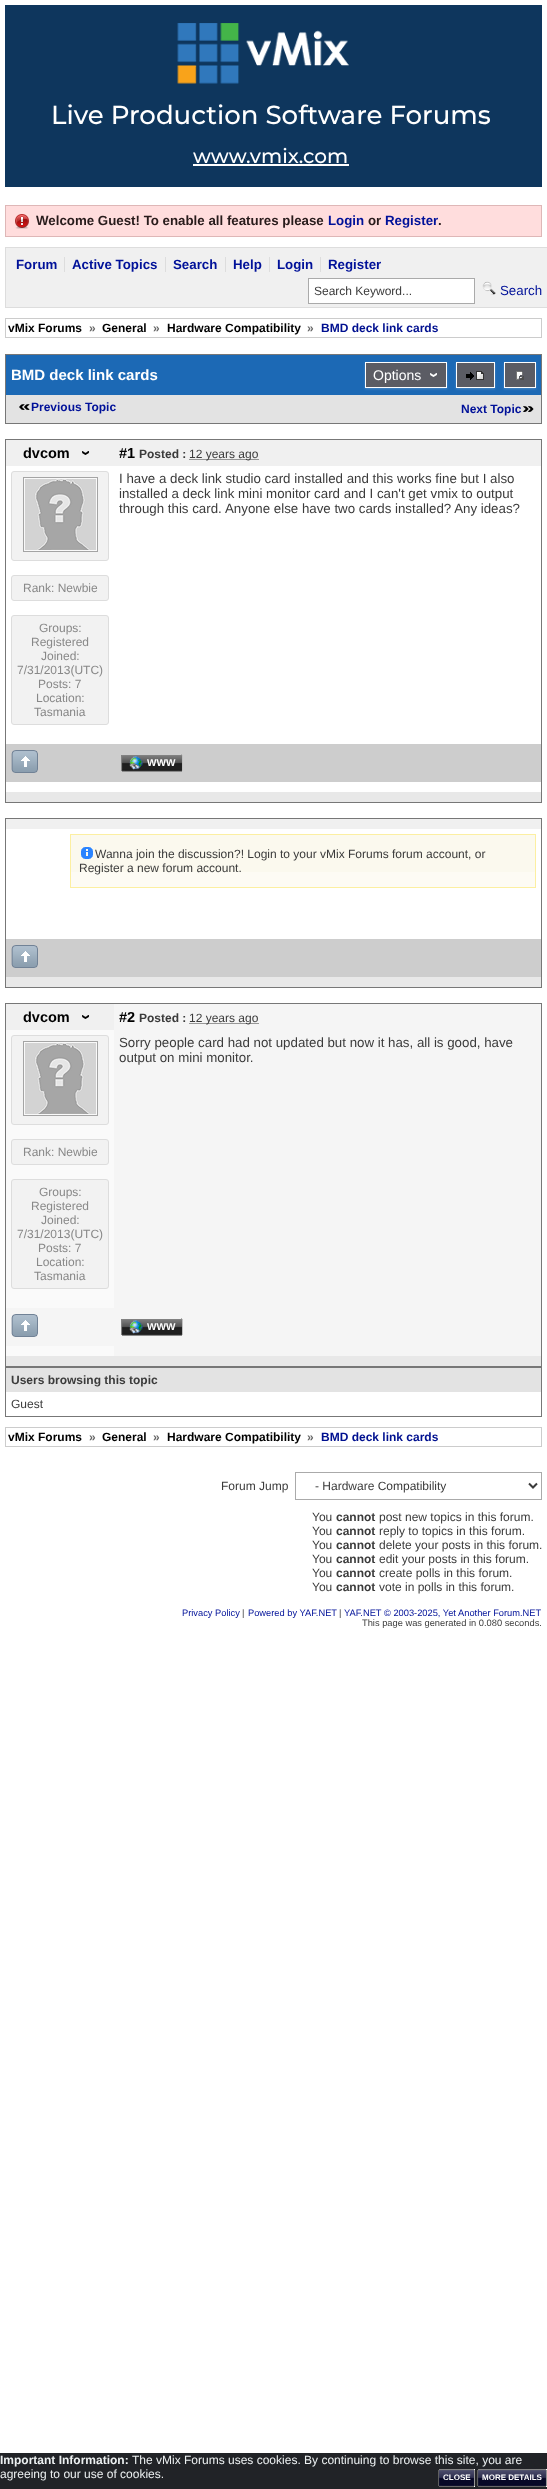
<?xml version="1.0" encoding="UTF-8"?>
<svg xmlns="http://www.w3.org/2000/svg" width="547" height="2489">
    <defs>
        <filter id="blur1" x="-50%" y="-200%" width="200%" height="500%"><feGaussianBlur stdDeviation="1"/></filter>
    </defs>
    <rect width="100%" height="100%" fill="#FFFFFF"/>
    <rect x="5" y="5" width="537" height="182" fill="#0E365D"/>
    <image x="177" y="23" width="172" height="61" href="img_01.png"/>
    <text x="51" y="124" font-family="Montserrat" font-size="26" font-weight="500" fill="#FFFFFF">Live Production Software Forums</text>
    <text x="193" y="163" font-family="Montserrat" font-size="20" font-weight="500" fill="#FFFFFF">www.vmix.com</text>
    <rect x="193" y="164" width="156" height="2" fill="#FFFFFF"/>
    <rect x="6" y="206" width="535" height="30" fill="#FFDDDD"/>
    <image x="15" y="214" width="14" height="15" href="img_02.png"/>
    <rect x="5.5" y="205.5" width="536" height="31" fill="none" stroke="#DEB7B7"/>
    <text x="36" y="225" font-family="Liberation Sans" font-size="13.3" font-weight="700" fill="#281B1B">Welcome Guest! To enable all features please</text>
    <text x="328" y="225" font-family="Liberation Sans" font-size="13.3" font-weight="700" fill="#001199">Login</text>
    <text x="368" y="225" font-family="Liberation Sans" font-size="13.3" font-weight="700" fill="#281B1B">or</text>
    <text x="385" y="225" font-family="Liberation Sans" font-size="13.3" font-weight="700" fill="#001199">Register</text>
    <text x="438" y="225" font-family="Liberation Sans" font-size="13.3" font-weight="700" fill="#281B1B">.</text>
    <rect x="5.5" y="247.5" width="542" height="60" fill="#F0F0F0" stroke="#DDDDDD"/>
    <text x="16" y="269" font-family="Liberation Sans" font-size="13.3" font-weight="700" fill="#001199">Forum</text>
    <text x="72" y="269" font-family="Liberation Sans" font-size="13.3" font-weight="700" fill="#001199">Active Topics</text>
    <rect x="64" y="257" width="1" height="15" fill="#DDDDDD"/>
    <text x="173" y="269" font-family="Liberation Sans" font-size="13.3" font-weight="700" fill="#001199">Search</text>
    <rect x="165" y="257" width="1" height="15" fill="#DDDDDD"/>
    <text x="233" y="269" font-family="Liberation Sans" font-size="13.3" font-weight="700" fill="#001199">Help</text>
    <rect x="225" y="257" width="1" height="15" fill="#DDDDDD"/>
    <text x="277" y="269" font-family="Liberation Sans" font-size="13.3" font-weight="700" fill="#001199">Login</text>
    <rect x="269" y="257" width="1" height="15" fill="#DDDDDD"/>
    <text x="328" y="269" font-family="Liberation Sans" font-size="13.3" font-weight="700" fill="#001199">Register</text>
    <rect x="320" y="257" width="1" height="15" fill="#DDDDDD"/>
    <rect x="308.5" y="278.5" width="166" height="25" fill="#FFFFFF" stroke="#AAAAAA"/>
    <text x="314" y="295" font-family="Liberation Sans" font-size="12" fill="#3B3B3B">Search Keyword...</text>
    <image x="482" y="281" width="14" height="14" href="img_03.png"/>
    <text x="500" y="295" font-family="Liberation Sans" font-size="13.3" fill="#001199">Search</text>
    <rect x="5.5" y="318.5" width="536" height="19" fill="none" stroke="#CCCCCC"/>
    <text x="8" y="332" font-family="Liberation Sans" font-size="12" font-weight="700" fill="#000000">vMix Forums</text>
    <text x="89" y="332" font-family="Liberation Sans" font-size="12" font-weight="700" fill="#666666">»</text>
    <text x="102" y="332" font-family="Liberation Sans" font-size="12" font-weight="700" fill="#000000">General</text>
    <text x="153" y="332" font-family="Liberation Sans" font-size="12" font-weight="700" fill="#666666">»</text>
    <text x="167" y="332" font-family="Liberation Sans" font-size="12" font-weight="700" fill="#000000">Hardware Compatibility</text>
    <text x="307" y="332" font-family="Liberation Sans" font-size="12" font-weight="700" fill="#666666">»</text>
    <text x="321" y="332" font-family="Liberation Sans" font-size="12" font-weight="700" fill="#001090">BMD deck link cards</text>
    <rect x="5" y="354" width="537" height="1" fill="#777777"/>
    <rect x="541" y="354" width="1" height="70" fill="#777777"/>
    <rect x="5" y="423" width="537" height="1" fill="#777777"/>
    <rect x="5" y="354" width="1" height="70" fill="#777777"/>
    <rect x="6" y="355" width="535" height="40" fill="#1C69B5"/>
    <text x="11" y="380" font-family="Liberation Sans" font-size="15" font-weight="700" fill="#FFFFFF">BMD deck link cards</text>
    <rect x="365" y="363" width="82" height="26" fill="#FFFFFF" fill-opacity="0.2" filter="url(#blur1)"/>
    <rect x="366" y="363" width="80" height="24" fill="#5B5C64"/>
    <image x="430" y="373" width="7" height="4" href="img_04.png"/>
    <rect x="365.5" y="362.5" width="81" height="25" fill="none" stroke="#FFFFFF"/>
    <text x="373" y="380" font-family="Liberation Sans" font-size="14" fill="#FFFFFF">Options</text>
    <rect x="456" y="363" width="39" height="26" fill="#FFFFFF" fill-opacity="0.2" filter="url(#blur1)"/>
    <rect x="456.5" y="362.5" width="38" height="25" fill="#5B5C64" stroke="#FFFFFF"/>
    <image x="466" y="371" width="18" height="9" href="img_05.png"/>
    <rect x="504" y="363" width="32" height="26" fill="#FFFFFF" fill-opacity="0.2" filter="url(#blur1)"/>
    <rect x="504.5" y="362.5" width="31" height="25" fill="#5B5C64" stroke="#FFFFFF"/>
    <image x="516" y="371" width="8" height="9" href="img_06.png"/>
    <rect x="6" y="395" width="535" height="28" fill="#E3E3E3"/>
    <image x="19" y="404" width="11" height="6" href="img_07.png"/>
    <text x="31" y="411" font-family="Liberation Sans" font-size="12" font-weight="700" fill="#001199">Previous Topic</text>
    <image x="523" y="406" width="11" height="6" href="img_08.png"/>
    <text x="461" y="413" font-family="Liberation Sans" font-size="12" font-weight="700" fill="#001199">Next Topic</text>
    <rect x="5" y="439" width="537" height="1" fill="#777777"/>
    <rect x="541" y="439" width="1" height="364" fill="#777777"/>
    <rect x="5" y="802" width="537" height="1" fill="#777777"/>
    <rect x="5" y="439" width="1" height="364" fill="#777777"/>
    <rect x="6" y="440" width="535" height="26" fill="#F0F0F0"/>
    <text x="23" y="458" font-family="Liberation Sans" font-size="14.5" font-weight="700" fill="#000000">dvcom</text>
    <image x="82" y="451" width="8" height="4" href="img_09.png"/>
    <text x="119" y="458" font-family="Liberation Sans" font-size="14.5" font-weight="700" fill="#000000">#1</text>
    <text x="139" y="458" font-family="Liberation Sans" font-size="12" font-weight="700" fill="#3B3B3B">Posted :</text>
    <path d="M 189.5 459.5 H 259" fill="none" stroke="#3B3B3B" stroke-dasharray="1 1"/>
    <text x="189" y="458" font-family="Liberation Sans" font-size="12" fill="#3B3B3B">12 years ago</text>
    <text font-family="Liberation Sans" font-size="13.3" fill="#3B3B3B">
        <tspan x="119" y="483">I have a deck link studio card installed and this works fine but I also</tspan>
        <tspan x="119" y="498">installed a deck link mini monitor card and I can't get vmix to output</tspan>
        <tspan x="119" y="513">through this card.</tspan>
    </text>
    <text x="225" y="513" font-family="Liberation Sans" font-size="13.3" fill="#3B3B3B">Anyone else have two cards installed? Any ideas?</text>
    <rect x="11.5" y="471.5" width="97" height="89" rx="2.5" fill="#F2F2F2" stroke="#DDDDDD"/>
    <image x="23" y="477" width="75" height="75" href="img_10.png"/>
    <rect x="11.5" y="575.5" width="97" height="25" rx="2.5" fill="#F2F2F2" stroke="#DDDDDD"/>
    <text x="23" y="592" font-family="Liberation Sans" font-size="12" fill="#888888">Rank: Newbie</text>
    <rect x="11.5" y="615.5" width="97" height="109" rx="2.5" fill="#F2F2F2" stroke="#DDDDDD"/>
    <text x="39" y="632" font-family="Liberation Sans" font-size="12" fill="#888888">Groups:</text>
    <text x="31" y="646" font-family="Liberation Sans" font-size="12" fill="#888888">Registered</text>
    <text x="41" y="660" font-family="Liberation Sans" font-size="12" fill="#888888">Joined:</text>
    <text x="17" y="674" font-family="Liberation Sans" font-size="12" fill="#888888">7/31/2013(UTC)</text>
    <text x="38" y="688" font-family="Liberation Sans" font-size="12" fill="#888888">Posts: 7</text>
    <text x="36" y="702" font-family="Liberation Sans" font-size="12" fill="#888888">Location:</text>
    <text x="34" y="716" font-family="Liberation Sans" font-size="12" fill="#888888">Tasmania</text>
    <rect x="6" y="744" width="535" height="38" fill="#CDCDCD"/>
    <image x="11" y="750" width="27" height="23" href="img_11.png"/>
    <image x="181" y="754" width="2" height="18" href="img_12.png"/>
    <image x="121" y="755" width="60" height="17" href="img_13.png"/>
    <image x="129" y="756" width="14" height="14" href="img_14.png"/>
    <text x="147" y="766" font-family="Liberation Sans" font-size="10" font-weight="700" fill="#FFFFFF">WWW</text>
    <rect x="6" y="792" width="535" height="10" fill="#E8E8E8"/>
    <rect x="5" y="818" width="537" height="1" fill="#777777"/>
    <rect x="541" y="818" width="1" height="170" fill="#777777"/>
    <rect x="5" y="987" width="537" height="1" fill="#777777"/>
    <rect x="5" y="818" width="1" height="170" fill="#777777"/>
    <rect x="6" y="819" width="535" height="10" fill="#F0F0F0"/>
    <rect x="71" y="835" width="464" height="37" fill="#FBF9EE"/>
    <rect x="71" y="872" width="464" height="15" fill="#FDFBF4"/>
    <rect x="70.5" y="834.5" width="465" height="53" fill="none" stroke="#FCEFA1"/>
    <image x="81" y="847" width="12" height="12" href="img_15.png"/>
    <text x="95" y="858" font-family="Liberation Sans" font-size="12" fill="#3B3B3B">Wanna join the discussion?! Login to your vMix Forums forum account, or</text>
    <text x="79" y="872" font-family="Liberation Sans" font-size="12" fill="#3B3B3B">Register a new forum account.</text>
    <rect x="6" y="939" width="535" height="38" fill="#CDCDCD"/>
    <image x="11" y="945" width="27" height="23" href="img_11.png"/>
    <rect x="6" y="977" width="535" height="10" fill="#E8E8E8"/>
    <rect x="5" y="1003" width="537" height="1" fill="#777777"/>
    <rect x="541" y="1003" width="1" height="364" fill="#777777"/>
    <rect x="5" y="1366" width="537" height="2" fill="#777777"/>
    <rect x="5" y="1003" width="1" height="364" fill="#777777"/>
    <rect x="6" y="1004" width="108" height="26" fill="#F0F0F0"/>
    <text x="23" y="1022" font-family="Liberation Sans" font-size="14.5" font-weight="700" fill="#000000">dvcom</text>
    <image x="82" y="1015" width="8" height="4" href="img_09.png"/>
    <rect x="114" y="1004" width="427" height="304" fill="#F5F5F5"/>
    <text x="119" y="1022" font-family="Liberation Sans" font-size="14.5" font-weight="700" fill="#000000">#2</text>
    <text x="139" y="1022" font-family="Liberation Sans" font-size="12" font-weight="700" fill="#3B3B3B">Posted :</text>
    <path d="M 189.5 1023.5 H 259" fill="none" stroke="#3B3B3B" stroke-dasharray="1 1"/>
    <text x="189" y="1022" font-family="Liberation Sans" font-size="12" fill="#3B3B3B">12 years ago</text>
    <rect x="6" y="1030" width="108" height="278" fill="#FAFAFA"/>
    <text font-family="Liberation Sans" font-size="13.3" fill="#3B3B3B">
        <tspan x="119" y="1047">Sorry people card had not updated but now it has, all is good, have</tspan>
        <tspan x="119" y="1062">output on mini monitor.</tspan>
    </text>
    <rect x="11.5" y="1035.5" width="97" height="89" rx="2.5" fill="#F2F2F2" stroke="#DDDDDD"/>
    <image x="23" y="1041" width="75" height="75" href="img_10.png"/>
    <rect x="11.5" y="1139.5" width="97" height="25" rx="2.5" fill="#F2F2F2" stroke="#DDDDDD"/>
    <text x="23" y="1156" font-family="Liberation Sans" font-size="12" fill="#888888">Rank: Newbie</text>
    <rect x="11.5" y="1179.5" width="97" height="109" rx="2.5" fill="#F2F2F2" stroke="#DDDDDD"/>
    <text x="39" y="1196" font-family="Liberation Sans" font-size="12" fill="#888888">Groups:</text>
    <text x="31" y="1210" font-family="Liberation Sans" font-size="12" fill="#888888">Registered</text>
    <text x="41" y="1224" font-family="Liberation Sans" font-size="12" fill="#888888">Joined:</text>
    <text x="17" y="1238" font-family="Liberation Sans" font-size="12" fill="#888888">7/31/2013(UTC)</text>
    <text x="38" y="1252" font-family="Liberation Sans" font-size="12" fill="#888888">Posts: 7</text>
    <text x="36" y="1266" font-family="Liberation Sans" font-size="12" fill="#888888">Location:</text>
    <text x="34" y="1280" font-family="Liberation Sans" font-size="12" fill="#888888">Tasmania</text>
    <rect x="6" y="1308" width="535" height="38" fill="#F5F5F5"/>
    <image x="11" y="1314" width="27" height="23" href="img_16.png"/>
    <image x="181" y="1318" width="2" height="18" href="img_17.png"/>
    <image x="121" y="1319" width="60" height="17" href="img_18.png"/>
    <image x="129" y="1320" width="14" height="14" href="img_14.png"/>
    <text x="147" y="1330" font-family="Liberation Sans" font-size="10" font-weight="700" fill="#FFFFFF">WWW</text>
    <rect x="6" y="1346" width="108" height="10" fill="#FAFAFA"/>
    <rect x="114" y="1346" width="427" height="10" fill="#F5F5F5"/>
    <rect x="6" y="1356" width="535" height="10" fill="#E8E8E8"/>
    <rect x="541" y="1367" width="1" height="50" fill="#777777"/>
    <rect x="5" y="1416" width="537" height="1" fill="#777777"/>
    <rect x="5" y="1367" width="1" height="50" fill="#777777"/>
    <rect x="6" y="1368" width="535" height="24" fill="#E3E3E3"/>
    <text x="11" y="1384" font-family="Liberation Sans" font-size="12" font-weight="700" fill="#3B3B3B">Users browsing this topic</text>
    <text x="11" y="1408" font-family="Liberation Sans" font-size="12" fill="#3B3B3B">Guest</text>
    <rect x="5.5" y="1427.5" width="536" height="19" fill="none" stroke="#CCCCCC"/>
    <text x="8" y="1441" font-family="Liberation Sans" font-size="12" font-weight="700" fill="#000000">vMix Forums</text>
    <text x="89" y="1441" font-family="Liberation Sans" font-size="12" font-weight="700" fill="#666666">»</text>
    <text x="102" y="1441" font-family="Liberation Sans" font-size="12" font-weight="700" fill="#000000">General</text>
    <text x="153" y="1441" font-family="Liberation Sans" font-size="12" font-weight="700" fill="#666666">»</text>
    <text x="167" y="1441" font-family="Liberation Sans" font-size="12" font-weight="700" fill="#000000">Hardware Compatibility</text>
    <text x="307" y="1441" font-family="Liberation Sans" font-size="12" font-weight="700" fill="#666666">»</text>
    <text x="321" y="1441" font-family="Liberation Sans" font-size="12" font-weight="700" fill="#001090">BMD deck link cards</text>
    <text x="221" y="1490" font-family="Liberation Sans" font-size="12" fill="#3B3B3B">Forum Jump</text>
    <rect x="295.5" y="1472.5" width="246" height="27" fill="none" stroke="#AAAAAA"/>
    <path d="M 529 1483.5 L 533 1487.5 L 537 1483.5" fill="none" stroke="#3B3B3B" stroke-width="2"/>
    <text x="315" y="1490" font-family="Liberation Sans" font-size="12" fill="#3B3B3B">- Hardware Compatibility</text>
    <text x="312" y="1521" font-family="Liberation Sans" font-size="12" fill="#3B3B3B">You</text>
    <text x="336" y="1521" font-family="Liberation Sans" font-size="12" font-weight="700" fill="#3B3B3B">cannot</text>
    <text x="379" y="1521" font-family="Liberation Sans" font-size="12" fill="#3B3B3B">post new topics in this forum.</text>
    <text x="312" y="1535" font-family="Liberation Sans" font-size="12" fill="#3B3B3B">You</text>
    <text x="336" y="1535" font-family="Liberation Sans" font-size="12" font-weight="700" fill="#3B3B3B">cannot</text>
    <text x="379" y="1535" font-family="Liberation Sans" font-size="12" fill="#3B3B3B">reply to topics in this forum.</text>
    <text x="312" y="1549" font-family="Liberation Sans" font-size="12" fill="#3B3B3B">You</text>
    <text x="336" y="1549" font-family="Liberation Sans" font-size="12" font-weight="700" fill="#3B3B3B">cannot</text>
    <text x="379" y="1549" font-family="Liberation Sans" font-size="12" fill="#3B3B3B">delete your posts in this forum.</text>
    <text x="312" y="1563" font-family="Liberation Sans" font-size="12" fill="#3B3B3B">You</text>
    <text x="336" y="1563" font-family="Liberation Sans" font-size="12" font-weight="700" fill="#3B3B3B">cannot</text>
    <text x="379" y="1563" font-family="Liberation Sans" font-size="12" fill="#3B3B3B">edit your posts in this forum.</text>
    <text x="312" y="1577" font-family="Liberation Sans" font-size="12" fill="#3B3B3B">You</text>
    <text x="336" y="1577" font-family="Liberation Sans" font-size="12" font-weight="700" fill="#3B3B3B">cannot</text>
    <text x="379" y="1577" font-family="Liberation Sans" font-size="12" fill="#3B3B3B">create polls in this forum.</text>
    <text x="312" y="1591" font-family="Liberation Sans" font-size="12" fill="#3B3B3B">You</text>
    <text x="336" y="1591" font-family="Liberation Sans" font-size="12" font-weight="700" fill="#3B3B3B">cannot</text>
    <text x="379" y="1591" font-family="Liberation Sans" font-size="12" fill="#3B3B3B">vote in polls in this forum.</text>
    <text x="182" y="1616" font-family="Liberation Sans" font-size="9.3" fill="#001199">Privacy Policy</text>
    <text x="242" y="1616" font-family="Liberation Sans" font-size="9.3" fill="#3B3B3B">|</text>
    <text x="248" y="1616" font-family="Liberation Sans" font-size="9.3" fill="#001199">Powered by YAF.NET</text>
    <text x="339" y="1616" font-family="Liberation Sans" font-size="9.3" fill="#3B3B3B">|</text>
    <text x="344" y="1616" font-family="Liberation Sans" font-size="9.3" fill="#001199">YAF.NET © 2003-2025, Yet Another Forum.NET</text>
    <text x="362" y="1626" font-family="Liberation Sans" font-size="9.3" fill="#3B3B3B">This page was generated in 0.080 seconds.</text>
    <rect x="0" y="2453" width="547" height="36" fill="#212327"/>
    <text x="0" y="2464" font-family="Liberation Sans" font-size="12" font-weight="700" fill="#ECF0F1">Important Information:</text>
    <text x="132" y="2464" font-family="Liberation Sans" font-size="12" fill="#ECF0F1">The vMix Forums uses cookies. By continuing to browse this site, you are</text>
    <text x="0" y="2478" font-family="Liberation Sans" font-size="12" fill="#ECF0F1">agreeing to our use of cookies.</text>
    <image x="473" y="2469" width="2" height="18" href="img_19.png"/>
    <image x="438" y="2469" width="35" height="18" href="img_20.png"/>
    <text x="443" y="2480" font-family="Liberation Sans" font-size="8" font-weight="700" fill="#FFFFFF">CLOSE</text>
    <image x="545" y="2469" width="2" height="18" href="img_19.png"/>
    <image x="477" y="2469" width="68" height="18" href="img_21.png"/>
    <text x="482" y="2480" font-family="Liberation Sans" font-size="8" font-weight="700" fill="#FFFFFF">MORE DETAILS</text>
</svg>
